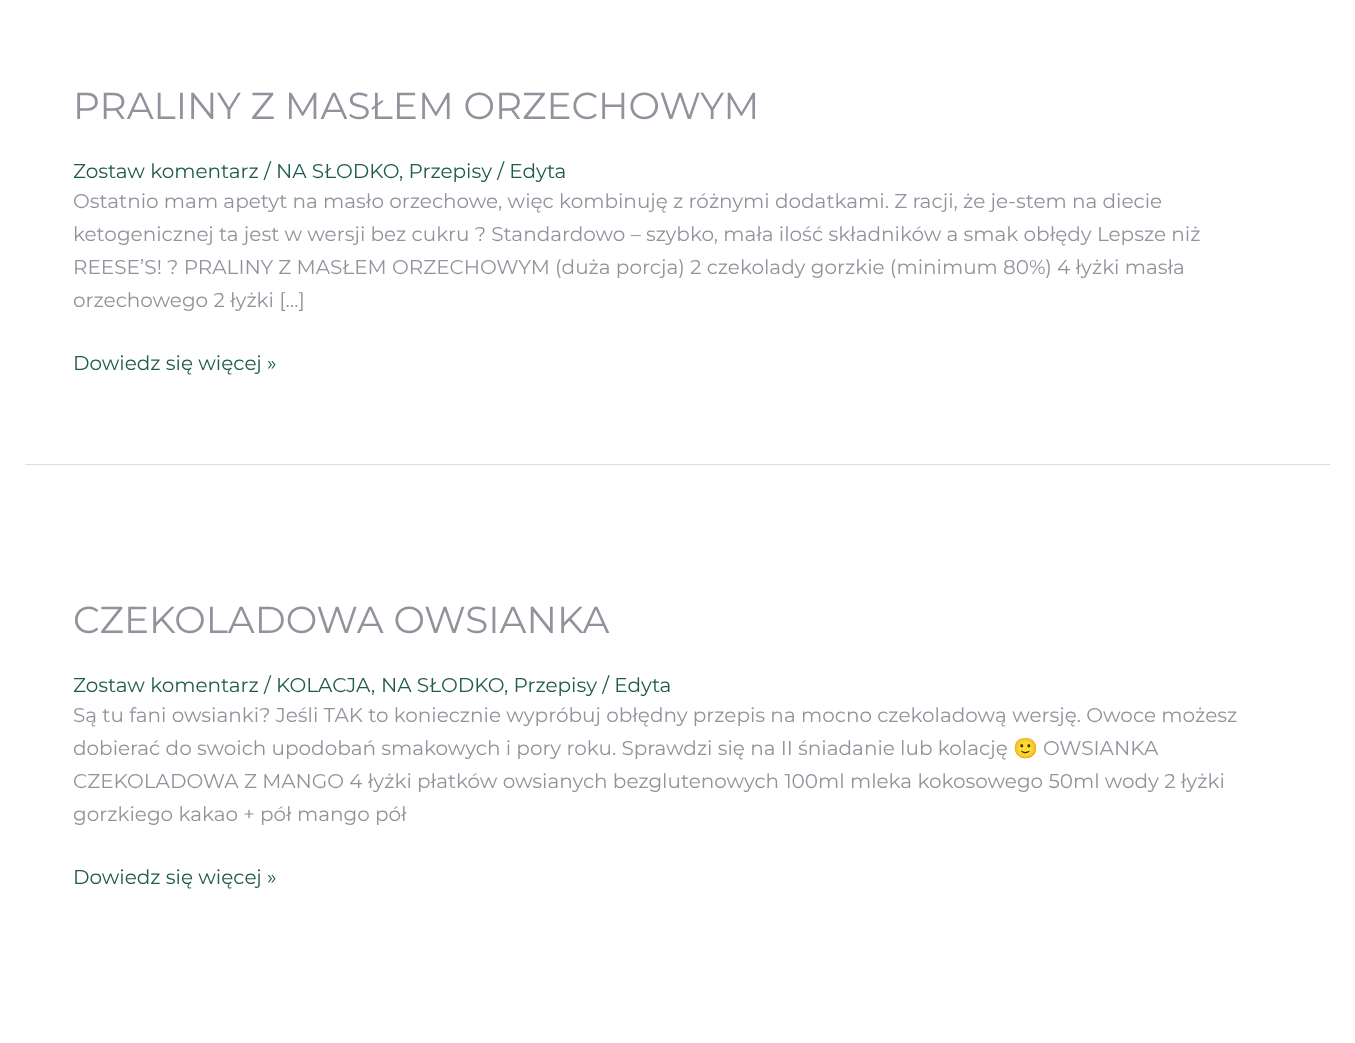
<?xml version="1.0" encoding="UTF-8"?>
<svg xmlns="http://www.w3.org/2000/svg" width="1355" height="1043">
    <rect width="100%" height="100%" fill="#FFFFFF"/>
    <rect x="25" y="464" width="1305" height="1" fill="#DDDDDD"/>
    <text x="73" y="119" font-family="Montserrat" font-size="37.5" fill="#96909C">PRALINY Z MASŁEM ORZECHOWYM</text>
    <text x="73" y="178" font-family="Montserrat" font-size="20" fill="#205B4F">Zostaw komentarz /</text>
    <text x="276" y="178" font-family="Montserrat" font-size="20" fill="#205B4F">NA SŁODKO</text>
    <text x="399" y="178" font-family="Montserrat" font-size="20" fill="#205B4F">, Przepisy / Edyta</text>
    <text font-family="Montserrat" font-size="20" fill="#96909C">
        <tspan x="73" y="208">Ostatnio mam apetyt na masło orzechowe, więc kombinuję z różnymi dodatkami. Z racji, że je-stem na diecie</tspan>
        <tspan x="73" y="241">ketogenicznej ta jest w wersji bez cukru ? Standardowo – szybko, mała ilość składników a smak obłędy Lepsze niż</tspan>
        <tspan x="73" y="274">REESE’S! ? PRALINY Z MASŁEM ORZECHOWYM (duża porcja) 2 czekolady gorzkie (minimum 80%) 4 łyżki masła</tspan>
        <tspan x="73" y="307">orzechowego 2 łyżki […]</tspan>
    </text>
    <text x="73" y="370" font-family="Montserrat" font-size="20" fill="#205B4F">Dowiedz się więcej »</text>
    <text x="73" y="633" font-family="Montserrat" font-size="37.5" fill="#96909C">CZEKOLADOWA OWSIANKA</text>
    <text x="73" y="692" font-family="Montserrat" font-size="20" fill="#205B4F">Zostaw komentarz / KOLACJA</text>
    <text x="371" y="692" font-family="Montserrat" font-size="20" fill="#205B4F">,</text>
    <text x="381" y="692" font-family="Montserrat" font-size="20" fill="#205B4F">NA SŁODKO</text>
    <text x="504" y="692" font-family="Montserrat" font-size="20" fill="#205B4F">, Przepisy / Edyta</text>
    <text font-family="Montserrat" font-size="20" fill="#96909C">
        <tspan x="73" y="722">Są tu fani owsianki? Jeśli TAK to koniecznie wypróbuj obłędny przepis na mocno czekoladową wersję. Owoce możesz</tspan>
        <tspan x="73" y="755">dobierać do swoich upodobań smakowych i pory roku. Sprawdzi się na II śniadanie lub kolację</tspan>
    </text>
    <text x="1013" y="755" font-family="Noto Color Emoji" font-size="20" fill="#96909C">🙂</text>
    <text x="1043" y="755" font-family="Montserrat" font-size="20" fill="#96909C">OWSIANKA</text>
    <text font-family="Montserrat" font-size="20" fill="#96909C">
        <tspan x="73" y="788">CZEKOLADOWA Z MANGO 4 łyżki płatków owsianych bezglutenowych 100ml mleka kokosowego 50ml wody 2 łyżki</tspan>
        <tspan x="73" y="821">gorzkiego kakao + pół mango pół</tspan>
    </text>
    <text x="73" y="884" font-family="Montserrat" font-size="20" fill="#205B4F">Dowiedz się więcej »</text>
</svg>
